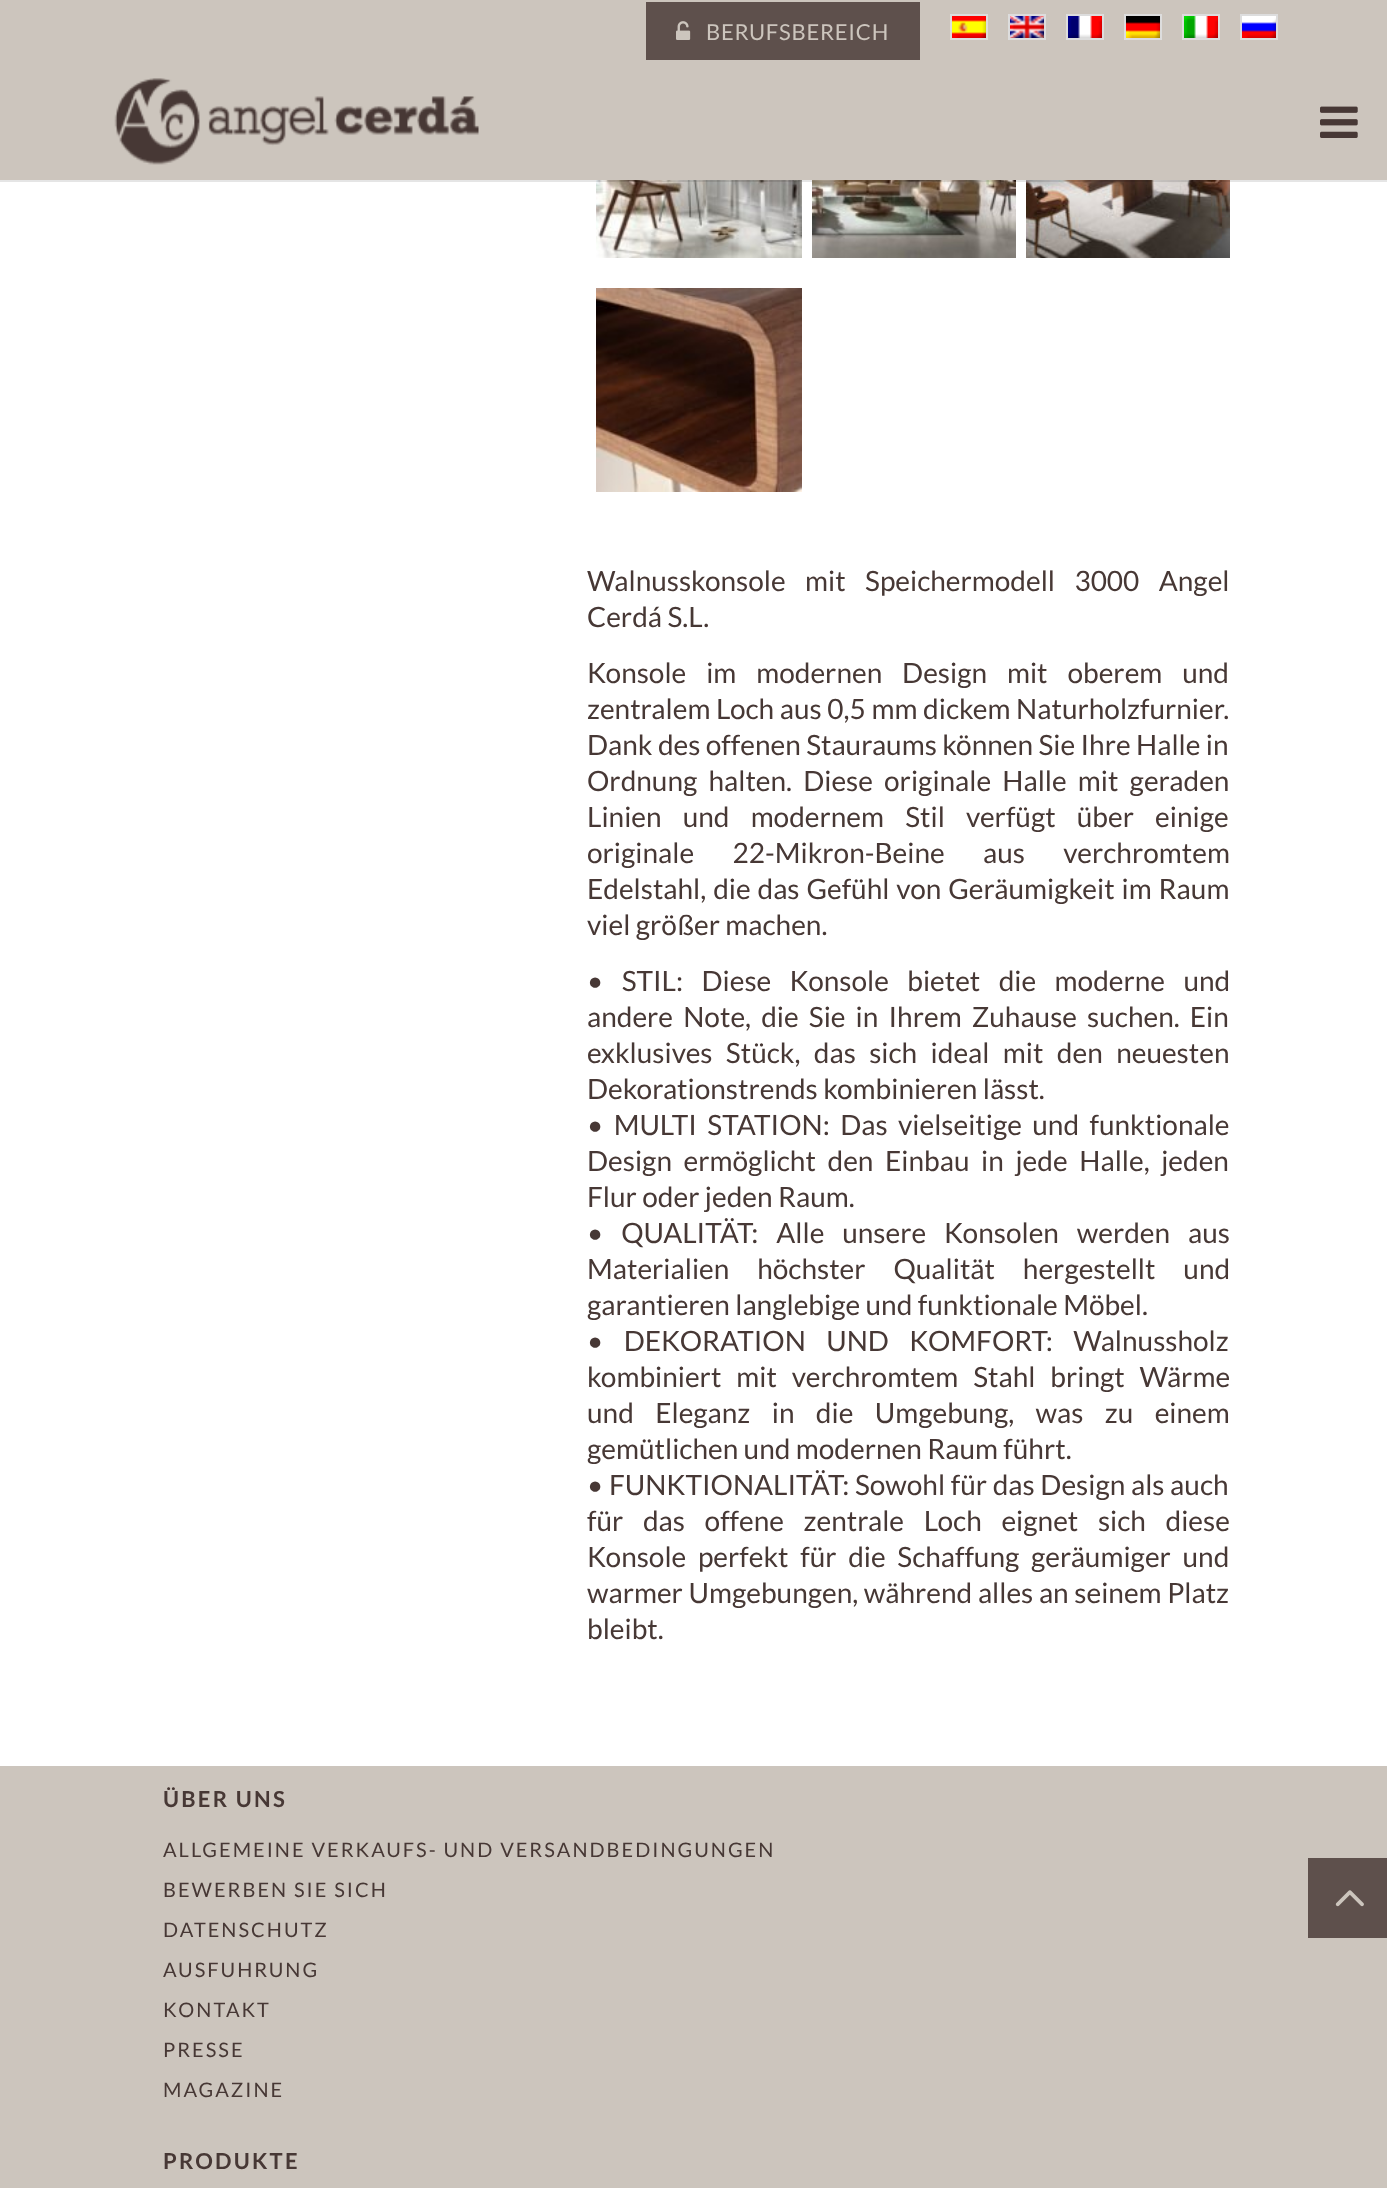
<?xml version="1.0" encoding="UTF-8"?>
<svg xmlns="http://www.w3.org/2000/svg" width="1387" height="2188">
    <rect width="100%" height="100%" fill="#FFFFFF"/>
    <image x="596" y="180" width="206" height="78" href="img_10.png"/>
    <image x="812" y="180" width="204" height="78" href="img_11.png"/>
    <image x="1026" y="180" width="204" height="78" href="img_12.png"/>
    <rect x="0" y="180" width="1387" height="2" fill="#000000" fill-opacity="0.1"/>
    <rect x="0" y="0" width="1387" height="180" fill="#CCC5BD"/>
    <rect x="646" y="2" width="274" height="58" fill="#5E504C"/>
    <image x="676" y="21" width="15" height="19" href="img_01.png"/>
    <text x="706" y="40" font-family="Lato" font-size="22" letter-spacing="0.75" fill="#CCC5BD">BERUFSBEREICH</text>
    <image x="952" y="16" width="34" height="22" href="img_02.png"/>
    <rect x="951" y="15" width="36" height="24" fill="none" stroke="#DDDDDD" stroke-width="2"/>
    <image x="1010" y="16" width="34" height="22" href="img_03.png"/>
    <rect x="1009" y="15" width="36" height="24" fill="none" stroke="#DDDDDD" stroke-width="2"/>
    <image x="1068" y="16" width="34" height="22" href="img_04.png"/>
    <rect x="1067" y="15" width="36" height="24" fill="none" stroke="#DDDDDD" stroke-width="2"/>
    <image x="1126" y="16" width="34" height="22" href="img_05.png"/>
    <rect x="1125" y="15" width="36" height="24" fill="none" stroke="#DDDDDD" stroke-width="2"/>
    <image x="1184" y="16" width="34" height="22" href="img_06.png"/>
    <rect x="1183" y="15" width="36" height="24" fill="none" stroke="#DDDDDD" stroke-width="2"/>
    <image x="1242" y="16" width="34" height="22" href="img_07.png"/>
    <rect x="1241" y="15" width="36" height="24" fill="none" stroke="#DDDDDD" stroke-width="2"/>
    <image x="114" y="78" width="365" height="87" href="img_08.png"/>
    <image x="1320" y="106" width="38" height="32" href="img_09.png"/>
    <image x="596" y="288" width="206" height="204" href="img_13.png"/>
    <text font-family="Lato" font-size="28" fill="#473835">
        <tspan x="587" y="591" word-spacing="14">Walnusskonsole mit Speichermodell 3000 Angel</tspan>
        <tspan x="587" y="627">Cerdá S.L.</tspan>
    </text>
    <text font-family="Lato" font-size="28" fill="#473835">
        <tspan x="587" y="683" word-spacing="14.5">Konsole im modernen Design mit oberem und</tspan>
        <tspan x="587" y="719" word-spacing="0.25">zentralem Loch aus 0,5 mm dickem Naturholzfurnier.</tspan>
        <tspan x="587" y="755">Dank des offenen Stauraums können Sie Ihre Halle in</tspan>
        <tspan x="587" y="791" word-spacing="5.75">Ordnung halten. Diese originale Halle mit geraden</tspan>
        <tspan x="587" y="827" word-spacing="15.75">Linien und modernem Stil verfügt über einige</tspan>
        <tspan x="587" y="863" word-spacing="33">originale 22-Mikron-Beine aus verchromtem</tspan>
        <tspan x="587" y="899" word-spacing="1.5">Edelstahl, die das Gefühl von Geräumigkeit im Raum</tspan>
        <tspan x="587" y="935">viel größer machen.</tspan>
    </text>
    <text font-family="Lato" font-size="28" fill="#473835">
        <tspan x="587" y="991" word-spacing="13">• STIL: Diese Konsole bietet die moderne und</tspan>
        <tspan x="587" y="1027" word-spacing="4.75">andere Note, die Sie in Ihrem Zuhause suchen. Ein</tspan>
        <tspan x="587" y="1063" word-spacing="8">exklusives Stück, das sich ideal mit den neuesten</tspan>
        <tspan x="587" y="1099">Dekorationstrends kombinieren lässt.</tspan>
        <tspan x="587" y="1135" word-spacing="5">• MULTI STATION: Das vielseitige und funktionale</tspan>
        <tspan x="587" y="1171" word-spacing="6.25">Design ermöglicht den Einbau in jede Halle, jeden</tspan>
        <tspan x="587" y="1207">Flur oder jeden Raum.</tspan>
        <tspan x="587" y="1243" word-spacing="12.5">• QUALITÄT: Alle unsere Konsolen werden aus</tspan>
        <tspan x="587" y="1279" word-spacing="22.5">Materialien höchster Qualität hergestellt und</tspan>
        <tspan x="587" y="1315">garantieren langlebige und funktionale Möbel.</tspan>
        <tspan x="587" y="1351" word-spacing="15">• DEKORATION UND KOMFORT: Walnussholz</tspan>
        <tspan x="587" y="1387" word-spacing="9.5">kombiniert mit verchromtem Stahl bringt Wärme</tspan>
        <tspan x="587" y="1423" word-spacing="16">und Eleganz in die Umgebung, was zu einem</tspan>
        <tspan x="587" y="1459">gemütlichen und modernen Raum führt.</tspan>
        <tspan x="587" y="1495" word-spacing="0.25">• FUNKTIONALITÄT: Sowohl für das Design als auch</tspan>
        <tspan x="587" y="1531" word-spacing="14.25">für das offene zentrale Loch eignet sich diese</tspan>
        <tspan x="587" y="1567" word-spacing="6.25">Konsole perfekt für die Schaffung geräumiger und</tspan>
        <tspan x="587" y="1603" word-spacing="0.25">warmer Umgebungen, während alles an seinem Platz</tspan>
        <tspan x="587" y="1639">bleibt.</tspan>
    </text>
    <rect x="0" y="1766" width="1387" height="422" fill="#CCC5BD"/>
    <text x="163" y="1807" font-family="Lato" font-size="22" font-weight="700" letter-spacing="2.25" fill="#473835">ÜBER UNS</text>
    <text x="163" y="1857" font-family="Lato" font-size="20" letter-spacing="2" fill="#473835">ALLGEMEINE VERKAUFS- UND VERSANDBEDINGUNGEN</text>
    <text x="163" y="1897" font-family="Lato" font-size="20" letter-spacing="2" fill="#473835">BEWERBEN SIE SICH</text>
    <text x="163" y="1937" font-family="Lato" font-size="20" letter-spacing="2" fill="#473835">DATENSCHUTZ</text>
    <text x="163" y="1977" font-family="Lato" font-size="20" letter-spacing="2" fill="#473835">AUSFUHRUNG</text>
    <text x="163" y="2017" font-family="Lato" font-size="20" letter-spacing="2" fill="#473835">KONTAKT</text>
    <text x="163" y="2057" font-family="Lato" font-size="20" letter-spacing="2" fill="#473835">PRESSE</text>
    <text x="163" y="2097" font-family="Lato" font-size="20" letter-spacing="2" fill="#473835">MAGAZINE</text>
    <text x="163" y="2169" font-family="Lato" font-size="22" font-weight="700" letter-spacing="2.25" fill="#473835">PRODUKTE</text>
    <rect x="1308" y="1858" width="79" height="80" fill="#5E504C"/>
    <image x="1335" y="1890" width="29" height="17" href="img_14.png"/>
</svg>
